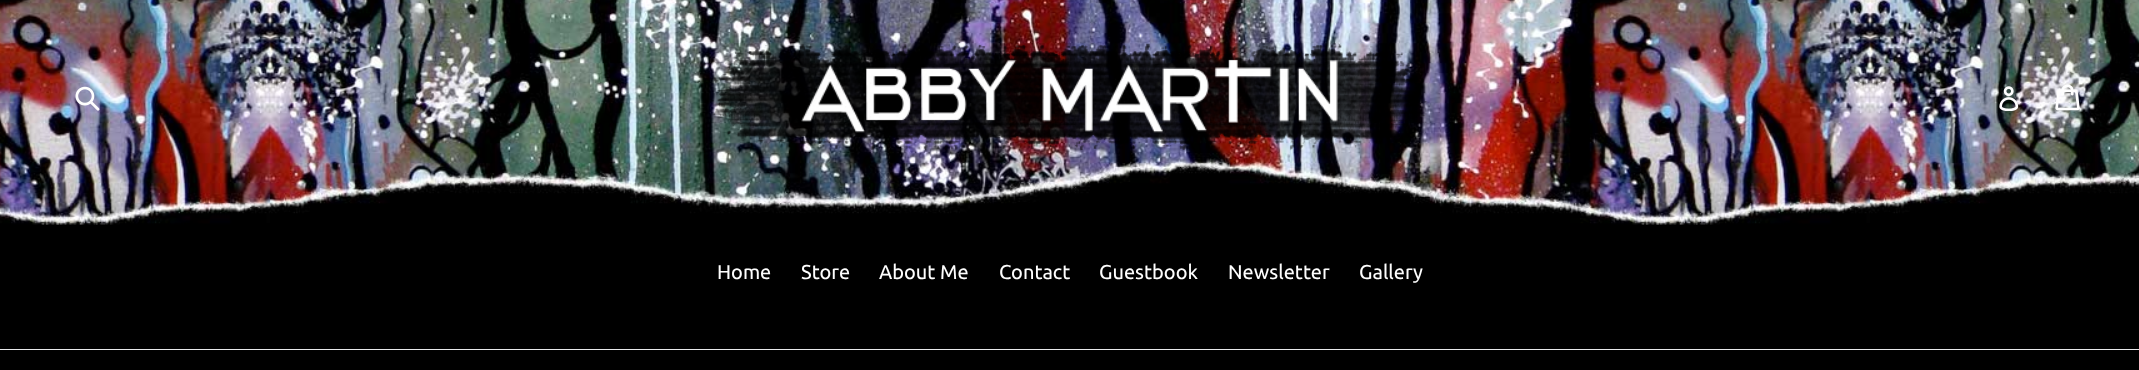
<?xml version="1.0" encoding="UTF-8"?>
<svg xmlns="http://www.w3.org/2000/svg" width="2139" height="370">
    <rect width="100%" height="100%" fill="#000000"/>
    <image x="0" y="0" width="2139" height="225" href="img_01.png"/>
    <image x="75" y="86" width="25" height="25" href="img_02.png"/>
    <image x="711" y="43" width="717" height="108" href="img_03.png"/>
    <image x="1999" y="86" width="20" height="25" href="img_04.png"/>
    <image x="2055" y="84" width="25" height="27" href="img_05.png"/>
    <rect x="0" y="349" width="2139" height="1" fill="#E8E9EB"/>
    <text x="717" y="279" font-family="Ubuntu" font-size="20" fill="#FEFEFE">Home</text>
    <text x="801" y="279" font-family="Ubuntu" font-size="20" fill="#FEFEFE">Store</text>
    <text x="879" y="279" font-family="Ubuntu" font-size="20" fill="#FEFEFE">About Me</text>
    <text x="999" y="279" font-family="Ubuntu" font-size="20" fill="#FEFEFE">Contact</text>
    <text x="1099" y="279" font-family="Ubuntu" font-size="20" fill="#FEFEFE">Guestbook</text>
    <text x="1228" y="279" font-family="Ubuntu" font-size="20" fill="#FEFEFE">Newsletter</text>
    <text x="1359" y="279" font-family="Ubuntu" font-size="20" fill="#FEFEFE">Gallery</text>
</svg>
